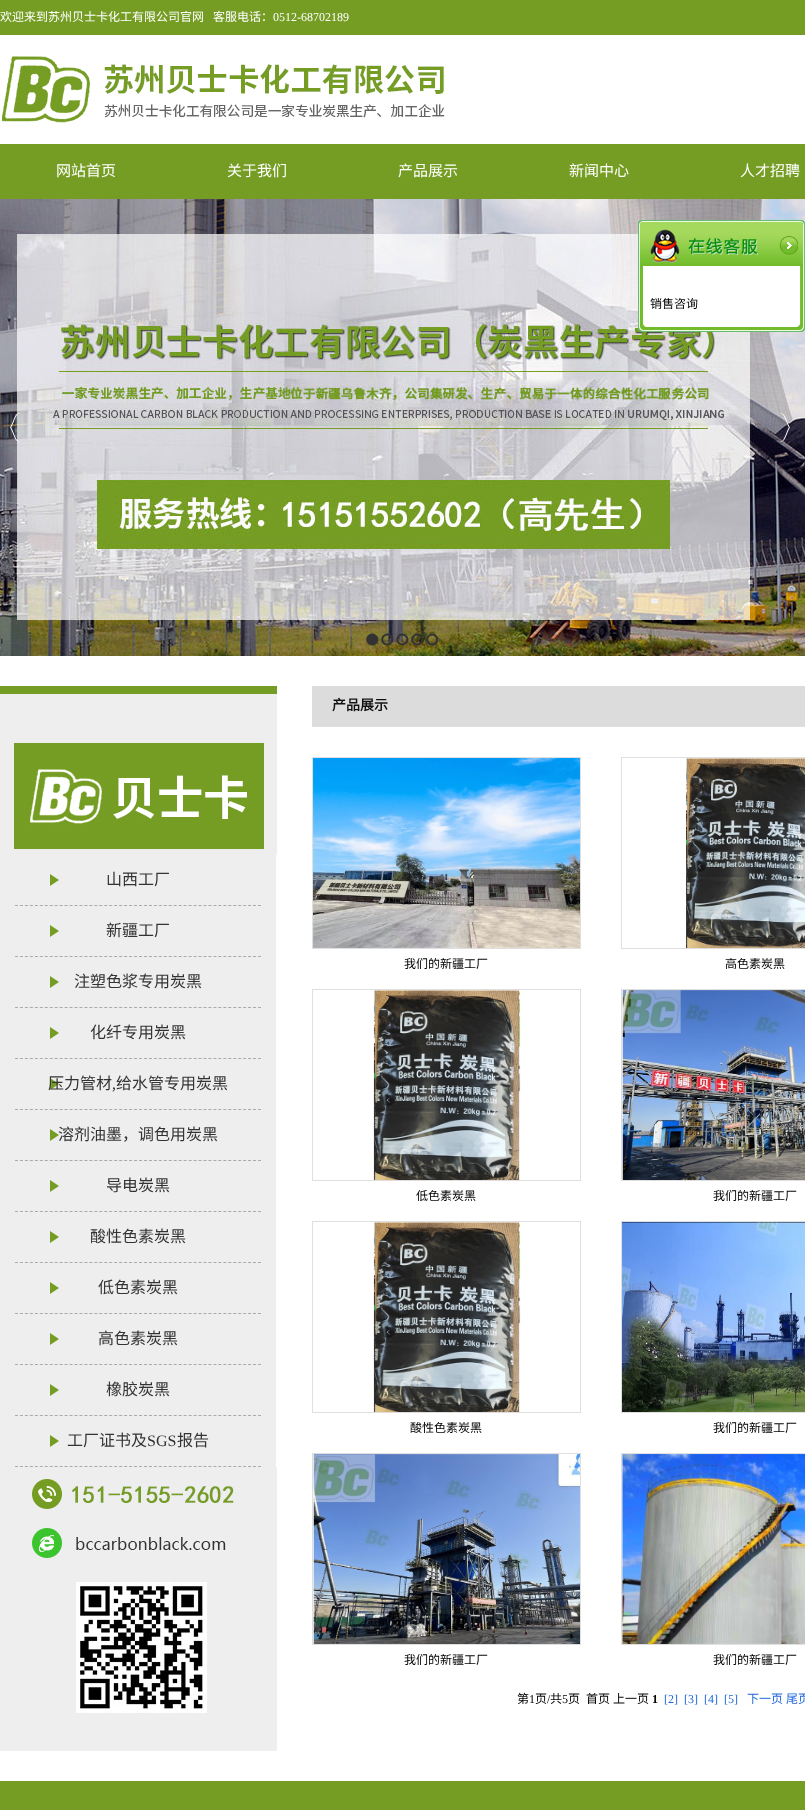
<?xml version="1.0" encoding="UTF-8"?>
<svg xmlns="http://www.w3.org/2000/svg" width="805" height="1810">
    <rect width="100%" height="100%" fill="#FFFFFF"/>
    <rect x="0" y="0" width="805" height="35" fill="#759D23"/>
    <text x="0" y="21" font-family="Noto Sans CJK SC" font-size="12" fill="#FFFFFF">欢迎来到苏州贝士卡化工有限公司官网</text>
    <text x="213" y="21" font-family="Noto Sans CJK SC" font-size="12" fill="#FFFFFF">客服电话：</text>
    <text x="273" y="21" font-family="Liberation Serif" font-size="12" fill="#FFFFFF">0512-68702189</text>
    <image x="1" y="54" width="446" height="70" href="img_01.png"/>
    <rect x="0" y="144" width="805" height="55" fill="#759D23"/>
    <text x="56" y="176" font-family="Noto Sans CJK SC" font-size="15" fill="#FFFFFF">网站首页</text>
    <text x="227" y="176" font-family="Noto Sans CJK SC" font-size="15" fill="#FFFFFF">关于我们</text>
    <text x="398" y="176" font-family="Noto Sans CJK SC" font-size="15" fill="#FFFFFF">产品展示</text>
    <text x="569" y="176" font-family="Noto Sans CJK SC" font-size="15" fill="#FFFFFF">新闻中心</text>
    <text x="740" y="176" font-family="Noto Sans CJK SC" font-size="15" fill="#FFFFFF">人才招聘</text>
    <image x="0" y="199" width="805" height="457" href="img_02.png"/>
    <image x="366" y="633" width="13" height="13" href="img_03.png"/>
    <image x="381" y="633" width="13" height="13" href="img_04.png"/>
    <image x="396" y="633" width="13" height="13" href="img_05.png"/>
    <image x="411" y="633" width="13" height="13" href="img_06.png"/>
    <image x="426" y="633" width="13" height="13" href="img_07.png"/>
    <image x="10" y="413" width="10" height="29" href="img_08.png"/>
    <image x="779" y="413" width="11" height="29" href="img_09.png"/>
    <rect x="0" y="1781" width="805" height="29" fill="#759D23"/>
    <image x="638" y="220" width="167" height="46" href="img_10.png"/>
    <image x="638" y="266" width="167" height="58" href="img_11.png"/>
    <image x="638" y="324" width="167" height="8" href="img_12.png"/>
    <image x="0" y="686" width="277" height="169" href="img_13.png"/>
    <rect x="0" y="855" width="276" height="612" fill="#EEEEEE"/>
    <image x="50" y="874" width="9" height="12" href="img_14.png"/>
    <path d="M 15 905.5 H 261" fill="none" stroke="#AAAAAA" stroke-dasharray="3 1.96"/>
    <text x="106" y="885" font-family="Noto Sans CJK SC" font-size="16" fill="#333333">山西工厂</text>
    <image x="50" y="925" width="9" height="12" href="img_14.png"/>
    <path d="M 15 956.5 H 261" fill="none" stroke="#AAAAAA" stroke-dasharray="3 1.96"/>
    <text x="106" y="936" font-family="Noto Sans CJK SC" font-size="16" fill="#333333">新疆工厂</text>
    <image x="50" y="976" width="9" height="12" href="img_14.png"/>
    <path d="M 15 1007.5 H 261" fill="none" stroke="#AAAAAA" stroke-dasharray="3 1.96"/>
    <text x="74" y="987" font-family="Noto Sans CJK SC" font-size="16" fill="#333333">注塑色浆专用炭黑</text>
    <image x="50" y="1027" width="9" height="12" href="img_14.png"/>
    <path d="M 15 1058.5 H 261" fill="none" stroke="#AAAAAA" stroke-dasharray="3 1.96"/>
    <text x="90" y="1038" font-family="Noto Sans CJK SC" font-size="16" fill="#333333">化纤专用炭黑</text>
    <image x="50" y="1078" width="9" height="12" href="img_14.png"/>
    <path d="M 15 1109.5 H 261" fill="none" stroke="#AAAAAA" stroke-dasharray="3 1.96"/>
    <text x="48" y="1089" font-family="Noto Sans CJK SC" font-size="16" fill="#333333">压力管材</text>
    <text x="112" y="1089" font-family="Liberation Serif" font-size="16" fill="#333333">,</text>
    <text x="116" y="1089" font-family="Noto Sans CJK SC" font-size="16" fill="#333333">给水管专用炭黑</text>
    <image x="50" y="1129" width="9" height="12" href="img_14.png"/>
    <path d="M 15 1160.5 H 261" fill="none" stroke="#AAAAAA" stroke-dasharray="3 1.96"/>
    <text x="58" y="1140" font-family="Noto Sans CJK SC" font-size="16" fill="#333333">溶剂油墨，调色用炭黑</text>
    <image x="50" y="1180" width="9" height="12" href="img_14.png"/>
    <path d="M 15 1211.5 H 261" fill="none" stroke="#AAAAAA" stroke-dasharray="3 1.96"/>
    <text x="106" y="1191" font-family="Noto Sans CJK SC" font-size="16" fill="#333333">导电炭黑</text>
    <image x="50" y="1231" width="9" height="12" href="img_14.png"/>
    <path d="M 15 1262.5 H 261" fill="none" stroke="#AAAAAA" stroke-dasharray="3 1.96"/>
    <text x="90" y="1242" font-family="Noto Sans CJK SC" font-size="16" fill="#333333">酸性色素炭黑</text>
    <image x="50" y="1282" width="9" height="12" href="img_14.png"/>
    <path d="M 15 1313.5 H 261" fill="none" stroke="#AAAAAA" stroke-dasharray="3 1.96"/>
    <text x="98" y="1293" font-family="Noto Sans CJK SC" font-size="16" fill="#333333">低色素炭黑</text>
    <image x="50" y="1333" width="9" height="12" href="img_14.png"/>
    <path d="M 15 1364.5 H 261" fill="none" stroke="#AAAAAA" stroke-dasharray="3 1.96"/>
    <text x="98" y="1344" font-family="Noto Sans CJK SC" font-size="16" fill="#333333">高色素炭黑</text>
    <image x="50" y="1384" width="9" height="12" href="img_14.png"/>
    <path d="M 15 1415.5 H 261" fill="none" stroke="#AAAAAA" stroke-dasharray="3 1.96"/>
    <text x="106" y="1395" font-family="Noto Sans CJK SC" font-size="16" fill="#333333">橡胶炭黑</text>
    <image x="50" y="1435" width="9" height="12" href="img_14.png"/>
    <path d="M 15 1466.5 H 261" fill="none" stroke="#AAAAAA" stroke-dasharray="3 1.96"/>
    <text x="67" y="1446" font-family="Noto Sans CJK SC" font-size="16" fill="#333333">工厂证书及</text>
    <text x="147" y="1446" font-family="Liberation Serif" font-size="16" fill="#333333">SGS</text>
    <text x="177" y="1446" font-family="Noto Sans CJK SC" font-size="16" fill="#333333">报告</text>
    <image x="0" y="1467" width="277" height="284" href="img_15.png"/>
    <rect x="312" y="686" width="493" height="40" fill="#DCDCDC"/>
    <rect x="312" y="726" width="493" height="1" fill="#DFDFDF"/>
    <text x="332" y="710" font-family="Noto Sans CJK SC" font-size="14" font-weight="700" fill="#111111">产品展示</text>
    <rect x="312.5" y="757.5" width="268" height="191" fill="none" stroke="#DFDFDF"/>
    <image x="313" y="758" width="267" height="190" href="img_16.png"/>
    <text x="404" y="968" font-family="Noto Sans CJK SC" font-size="12" fill="#000000">我们的新疆工厂</text>
    <rect x="621.5" y="757.5" width="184" height="191" fill="none" stroke="#DFDFDF"/>
    <image x="686" y="758" width="119" height="190" href="img_17.png"/>
    <text x="725" y="968" font-family="Noto Sans CJK SC" font-size="12" fill="#000000">高色素炭黑</text>
    <rect x="312.5" y="989.5" width="268" height="191" fill="none" stroke="#DFDFDF"/>
    <image x="373" y="990" width="148" height="190" href="img_18.png"/>
    <text x="416" y="1200" font-family="Noto Sans CJK SC" font-size="12" fill="#000000">低色素炭黑</text>
    <rect x="621.5" y="989.5" width="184" height="191" fill="none" stroke="#DFDFDF"/>
    <image x="622" y="990" width="183" height="190" href="img_19.png"/>
    <text x="713" y="1200" font-family="Noto Sans CJK SC" font-size="12" fill="#000000">我们的新疆工厂</text>
    <rect x="312.5" y="1221.5" width="268" height="191" fill="none" stroke="#DFDFDF"/>
    <image x="373" y="1222" width="148" height="190" href="img_18.png"/>
    <text x="410" y="1432" font-family="Noto Sans CJK SC" font-size="12" fill="#000000">酸性色素炭黑</text>
    <rect x="621.5" y="1221.5" width="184" height="191" fill="none" stroke="#DFDFDF"/>
    <image x="622" y="1222" width="183" height="190" href="img_20.png"/>
    <text x="713" y="1432" font-family="Noto Sans CJK SC" font-size="12" fill="#000000">我们的新疆工厂</text>
    <rect x="312.5" y="1453.5" width="268" height="191" fill="none" stroke="#DFDFDF"/>
    <image x="313" y="1454" width="267" height="190" href="img_21.png"/>
    <text x="404" y="1664" font-family="Noto Sans CJK SC" font-size="12" fill="#000000">我们的新疆工厂</text>
    <rect x="621.5" y="1453.5" width="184" height="191" fill="none" stroke="#DFDFDF"/>
    <image x="622" y="1454" width="183" height="190" href="img_22.png"/>
    <text x="713" y="1664" font-family="Noto Sans CJK SC" font-size="12" fill="#000000">我们的新疆工厂</text>
    <text x="517" y="1703" font-family="Noto Sans CJK SC" font-size="12" fill="#000000">第</text>
    <text x="529" y="1703" font-family="Liberation Serif" font-size="12" fill="#000000">1</text>
    <text x="535" y="1703" font-family="Noto Sans CJK SC" font-size="12" fill="#000000">页</text>
    <text x="547" y="1703" font-family="Liberation Serif" font-size="12" fill="#000000">/</text>
    <text x="550" y="1703" font-family="Noto Sans CJK SC" font-size="12" fill="#000000">共</text>
    <text x="562" y="1703" font-family="Liberation Serif" font-size="12" fill="#000000">5</text>
    <text x="568" y="1703" font-family="Noto Sans CJK SC" font-size="12" fill="#000000">页</text>
    <text x="586" y="1703" font-family="Noto Sans CJK SC" font-size="12" fill="#000000">首页</text>
    <text x="613" y="1703" font-family="Noto Sans CJK SC" font-size="12" fill="#000000">上一页</text>
    <text x="652" y="1703" font-family="Liberation Serif" font-size="12" font-weight="700" fill="#000000">1</text>
    <text x="664" y="1703" font-family="Liberation Serif" font-size="12" fill="#2068DC">[2]</text>
    <text x="684" y="1703" font-family="Liberation Serif" font-size="12" fill="#2068DC">[3]</text>
    <text x="704" y="1703" font-family="Liberation Serif" font-size="12" fill="#2068DC">[4]</text>
    <text x="724" y="1703" font-family="Liberation Serif" font-size="12" fill="#2068DC">[5]</text>
    <text x="747" y="1703" font-family="Noto Sans CJK SC" font-size="12" fill="#2068DC">下一页</text>
    <text x="786" y="1703" font-family="Noto Sans CJK SC" font-size="12" fill="#2068DC">尾页</text>
    <image x="638" y="220" width="167" height="35" href="img_23.png"/>
    <image x="779" y="236" width="19" height="19" href="img_24.png"/>
    <text x="650" y="308" font-family="Noto Sans CJK SC" font-size="12" fill="#000000">销售咨询</text>
    <image x="638" y="328" width="167" height="4" href="img_25.png"/>
</svg>
